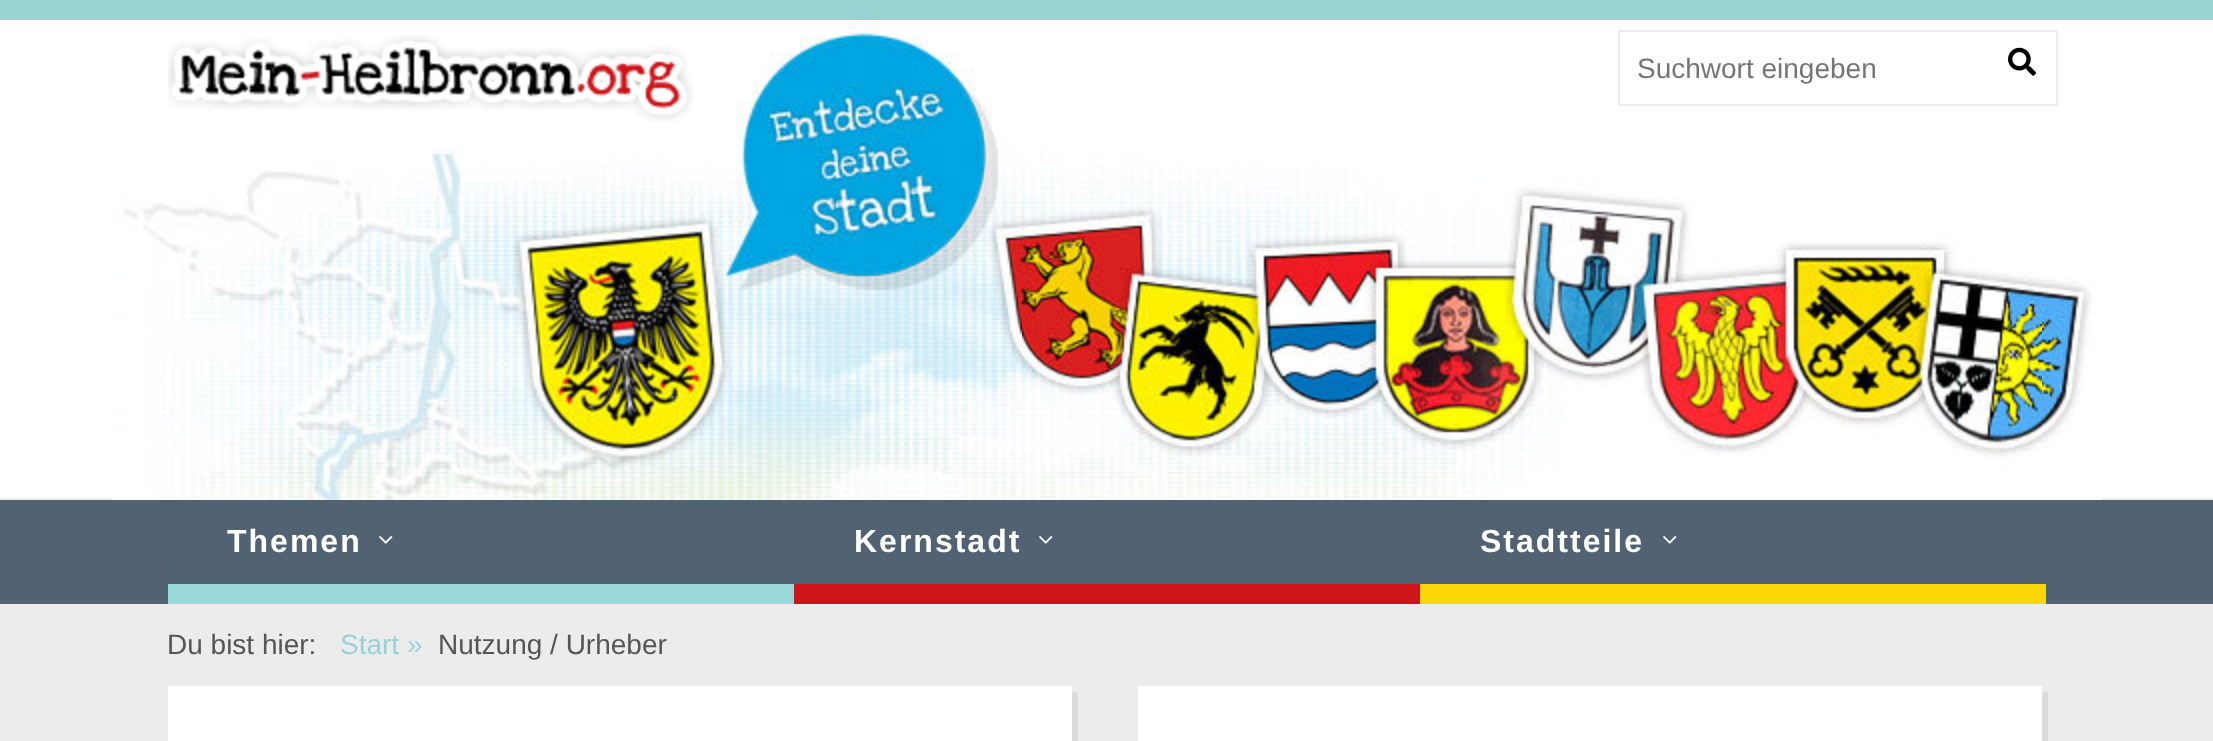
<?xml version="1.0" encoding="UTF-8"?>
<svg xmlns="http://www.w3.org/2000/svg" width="2213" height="741">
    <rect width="100%" height="100%" fill="#FFFFFF"/>
    <rect x="0" y="0" width="2213" height="20" fill="#9AD3D3"/>
    <rect x="0" y="498" width="2213" height="2" fill="#EEEEEE"/>
    <image x="111" y="20" width="1992" height="480" href="img_01.png"/>
    <image x="168" y="35" width="525" height="87" href="img_02.png"/>
    <rect x="1619" y="31" width="438" height="74" fill="none" stroke="#EEEEEE" stroke-width="2"/>
    <text x="1637" y="78" font-family="Liberation Sans" font-size="28" fill="#757575">Suchwort eingeben</text>
    <image x="2008" y="47" width="28" height="29" href="img_03.png"/>
    <rect x="0" y="500" width="2213" height="104" fill="#516373"/>
    <rect x="168" y="584" width="626" height="20" fill="#9AD9D9"/>
    <text x="227" y="552" font-family="Liberation Sans" font-size="32" font-weight="700" letter-spacing="2" fill="#FFFFFF">Themen</text>
    <image x="379" y="536" width="14" height="8" href="img_04.png"/>
    <rect x="794" y="584" width="626" height="20" fill="#CD1419"/>
    <text x="854" y="552" font-family="Liberation Sans" font-size="32" font-weight="700" letter-spacing="2" fill="#FFFFFF">Kernstadt</text>
    <image x="1039" y="536" width="14" height="8" href="img_04.png"/>
    <rect x="1420" y="584" width="626" height="20" fill="#FBD709"/>
    <text x="1480" y="552" font-family="Liberation Sans" font-size="32" font-weight="700" letter-spacing="2" fill="#FFFFFF">Stadtteile</text>
    <image x="1663" y="536" width="14" height="8" href="img_04.png"/>
    <rect x="0" y="604" width="2213" height="137" fill="#ECECEC"/>
    <text x="167" y="654" font-family="Liberation Sans" font-size="28" fill="#555555">Du bist hier:</text>
    <text x="340" y="654" font-family="Liberation Sans" font-size="28" fill="#9AD3D3">Start »</text>
    <text x="438" y="654" font-family="Liberation Sans" font-size="28" fill="#555555">Nutzung / Urheber</text>
    <path d="M 174 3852 V 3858 H 1078 V 692 H 1072 V 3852 Z" fill="#DBDBDC"/>
    <rect x="168" y="686" width="904" height="55" fill="#FFFFFF"/>
    <path d="M 1144 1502 V 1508 H 2048 V 692 H 2042 V 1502 Z" fill="#DBDBDC"/>
    <rect x="1138" y="686" width="904" height="55" fill="#FFFFFF"/>
</svg>
